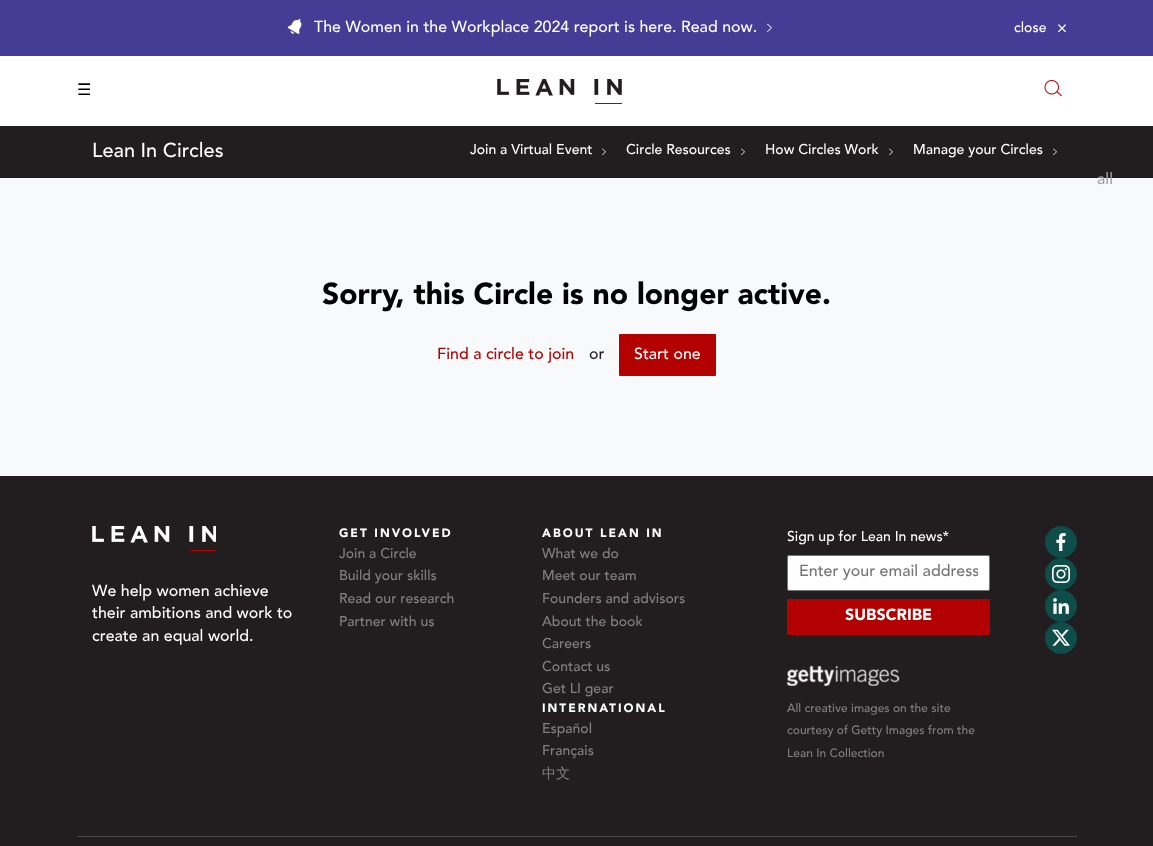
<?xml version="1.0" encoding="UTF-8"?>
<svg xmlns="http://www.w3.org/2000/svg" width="1153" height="846">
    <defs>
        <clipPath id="clip1"><rect x="799" y="563" width="179" height="19"/></clipPath>
    </defs>
    <rect width="100%" height="100%" fill="#FFFFFF"/>
    <rect x="0" y="0" width="1153" height="56" fill="#453D95"/>
    <image x="287" y="19" width="15" height="15" href="img_01.png"/>
    <text x="314" y="32" font-family="Avenir" font-size="16" fill="#FFFFFF">The Women in the Workplace 2024 report is here. Read now.</text>
    <image x="767" y="23" width="5" height="9" href="img_02.png"/>
    <text x="1014" y="32" font-family="Avenir" font-size="14" fill="#FFFFFF">close</text>
    <image x="1058" y="24" width="8" height="9" href="img_03.png"/>
    <text x="77" y="95" font-family="DejaVu Sans" font-size="16" fill="#000000">☰</text>
    <image x="497" y="79" width="125" height="25" href="img_04.png"/>
    <image x="1044" y="80" width="18" height="17" href="img_05.png"/>
    <rect x="0" y="126" width="1153" height="52" fill="#221E1F"/>
    <rect x="0" y="178" width="1153" height="298" fill="#F7F9FA"/>
    <text x="1097" y="184" font-family="Avenir" font-size="16" fill="#A09FA0">all</text>
    <text x="92" y="157" font-family="Avenir" font-size="20" fill="#FFFFFF">Lean In Circles</text>
    <text x="470" y="154" font-family="Avenir" font-size="14" fill="#FFFFFF">Join a Virtual Event</text>
    <image x="602" y="148" width="4" height="8" href="img_06.png"/>
    <text x="626" y="154" font-family="Avenir" font-size="14" fill="#FFFFFF">Circle Resources</text>
    <image x="741" y="148" width="4" height="8" href="img_06.png"/>
    <text x="765" y="154" font-family="Avenir" font-size="14" fill="#FFFFFF">How Circles Work</text>
    <image x="889" y="148" width="4" height="8" href="img_06.png"/>
    <text x="913" y="154" font-family="Avenir" font-size="14" fill="#FFFFFF">Manage your Circles</text>
    <image x="1053" y="148" width="4" height="8" href="img_06.png"/>
    <text x="322" y="304" font-family="Avenir" font-size="30" font-weight="900" fill="#000000">Sorry, this Circle is no longer active.</text>
    <text x="437" y="359" font-family="Avenir" font-size="16" fill="#B30101">Find a circle to join</text>
    <text x="589" y="359" font-family="Avenir" font-size="16" fill="#221E1F">or</text>
    <rect x="619" y="334" width="97" height="42" rx="1" fill="#B30101"/>
    <text x="634" y="359" font-family="Avenir" font-size="16" fill="#FFFFFF">Start one</text>
    <rect x="0" y="476" width="1153" height="370" fill="#221E1F"/>
    <rect x="77" y="836" width="1000" height="1" fill="#484848"/>
    <image x="92" y="526" width="124" height="25" href="img_07.png"/>
    <text font-family="Avenir" font-size="16" fill="#FFFFFF">
        <tspan x="92" y="596">We help women achieve</tspan>
        <tspan x="92" y="618">their ambitions and work to</tspan>
        <tspan x="92" y="641">create an equal world.</tspan>
    </text>
    <text x="339" y="537" font-family="Avenir" font-size="12" font-weight="900" letter-spacing="2" fill="#FFFFFF">GET INVOLVED</text>
    <text font-family="Avenir" font-size="14" fill="#818181">
        <tspan x="339" y="558">Join a Circle</tspan>
        <tspan x="339" y="580">Build your skills</tspan>
        <tspan x="339" y="603">Read our research</tspan>
        <tspan x="339" y="626">Partner with us</tspan>
    </text>
    <text x="542" y="537" font-family="Avenir" font-size="12" font-weight="900" letter-spacing="2" fill="#FFFFFF">ABOUT LEAN IN</text>
    <text font-family="Avenir" font-size="14" fill="#818181">
        <tspan x="542" y="558">What we do</tspan>
        <tspan x="542" y="580">Meet our team</tspan>
        <tspan x="542" y="603">Founders and advisors</tspan>
        <tspan x="542" y="626">About the book</tspan>
        <tspan x="542" y="648">Careers</tspan>
        <tspan x="542" y="671">Contact us</tspan>
        <tspan x="542" y="693">Get LI gear</tspan>
    </text>
    <text x="542" y="712" font-family="Avenir" font-size="12" font-weight="900" letter-spacing="2" fill="#FFFFFF">INTERNATIONAL</text>
    <text font-family="Avenir" font-size="14" fill="#818181">
        <tspan x="542" y="733">Español</tspan>
        <tspan x="542" y="755">Français</tspan>
    </text>
    <text x="542" y="778" font-family="WenQuanYi Zen Hei" font-size="14" font-weight="500" fill="#818181">中文</text>
    <text x="787" y="541" font-family="Avenir" font-size="14" fill="#FFFFFF">Sign up for Lean In news*</text>
    <rect x="787.5" y="555.5" width="202" height="35" rx="1.5" fill="#FFFFFF" stroke="#767676"/>
    <g clip-path="url(#clip1)">
        <text x="799" y="576" font-family="Avenir" font-size="16" fill="#757575">Enter your email address</text>
    </g>
    <rect x="787" y="599" width="203" height="36" fill="#B30101"/>
    <text x="845" y="620" font-family="Avenir" font-size="16" font-weight="900" fill="#FFFFFF">SUBSCRIBE</text>
    <image x="786" y="665" width="114" height="21" href="img_08.png"/>
    <text font-family="Avenir" font-size="12" fill="#818181">
        <tspan x="787" y="712">All creative images on the site</tspan>
        <tspan x="787" y="734">courtesy of Getty Images from the</tspan>
        <tspan x="787" y="757">Lean In Collection</tspan>
    </text>
    <circle cx="1061" cy="542" r="16" fill="#0E4D49"/>
    <image x="1056" y="533" width="10" height="18" href="img_09.png"/>
    <circle cx="1061" cy="574" r="16" fill="#0E4D49"/>
    <image x="1052" y="565" width="18" height="18" href="img_10.png"/>
    <circle cx="1061" cy="606" r="16" fill="#0E4D49"/>
    <image x="1053" y="598" width="16" height="16" href="img_11.png"/>
    <circle cx="1061" cy="638" r="16" fill="#0E4D49"/>
    <image x="1052" y="629" width="18" height="17" href="img_12.png"/>
</svg>
